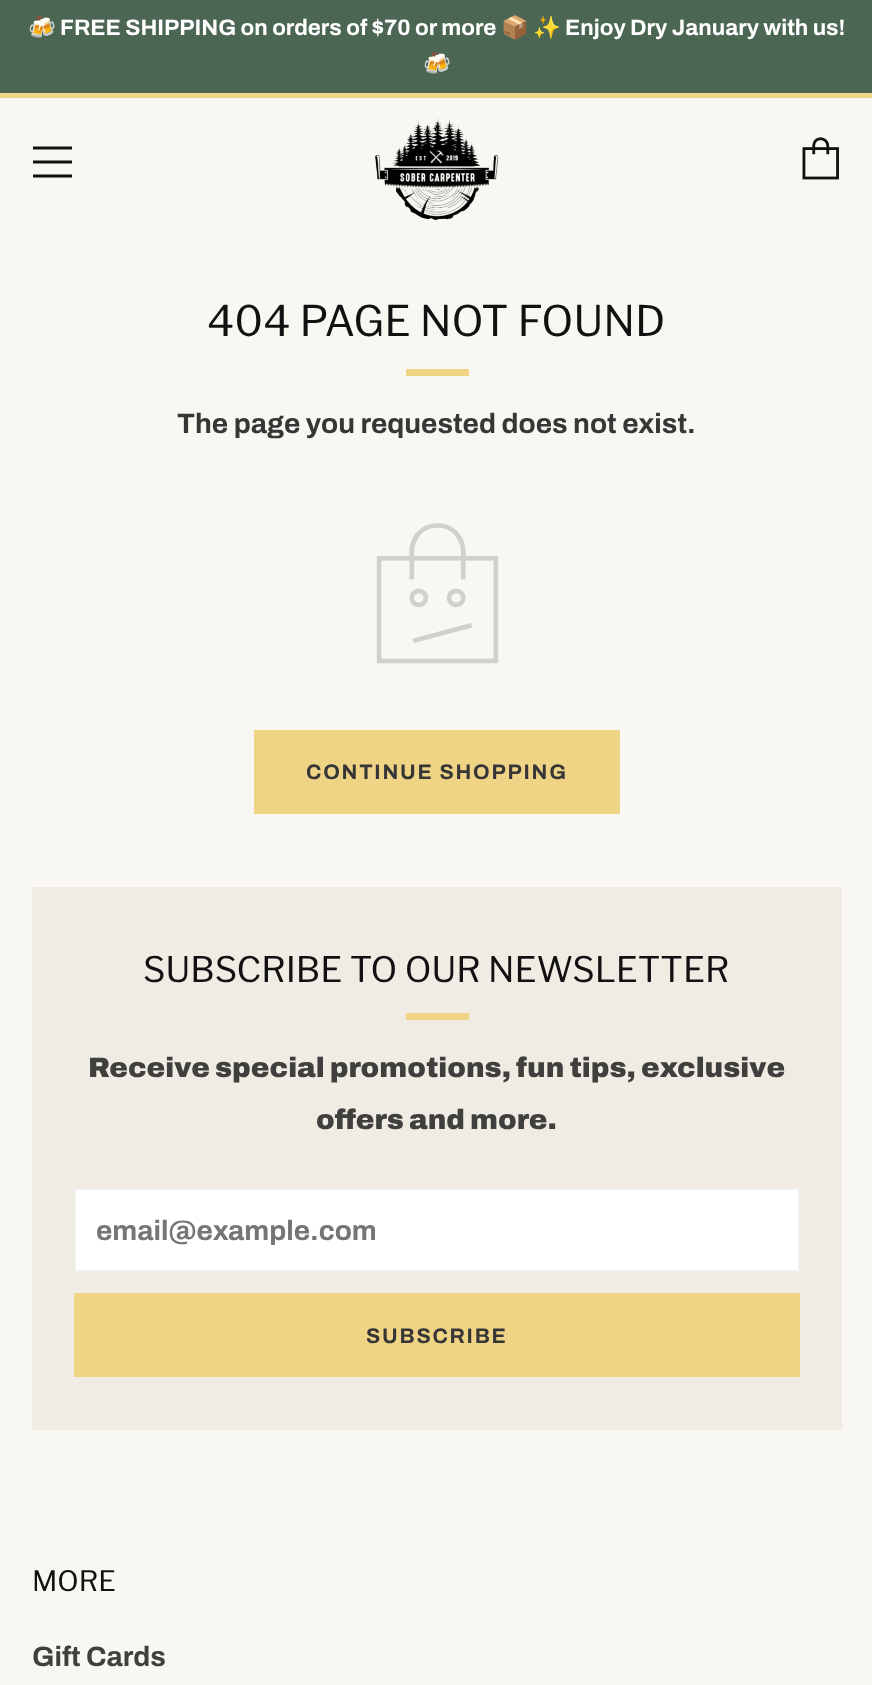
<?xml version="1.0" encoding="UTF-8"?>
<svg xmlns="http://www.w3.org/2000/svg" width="872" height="1685">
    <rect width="100%" height="100%" fill="#F8F7F1"/>
    <rect x="0" y="0" width="872" height="93" fill="#4B6653"/>
    <text x="28" y="35" font-family="Noto Color Emoji" font-size="22.4" font-weight="700" fill="#FFFFFF">🍻</text>
    <text x="60" y="35" font-family="Archivo" font-size="22.4" font-weight="700" fill="#FFFFFF">FREE SHIPPING on orders of $70 or more</text>
    <text x="501" y="35" font-family="Noto Color Emoji" font-size="22.4" font-weight="700" fill="#FFFFFF">📦</text>
    <text x="533" y="35" font-family="Noto Color Emoji" font-size="22.4" font-weight="700" fill="#FFFFFF">✨</text>
    <text x="565" y="35" font-family="Archivo" font-size="22.4" font-weight="700" fill="#FFFFFF">Enjoy Dry January with us!</text>
    <text x="423" y="71" font-family="Noto Color Emoji" font-size="22.4" font-weight="700" fill="#FFFFFF">🍻</text>
    <rect x="0" y="93" width="872" height="5" fill="#F0D486"/>
    <path d="M 33 149.5 H 72 V 146.5 H 33 Z M 33 177.5 H 72 V 174.5 H 33 Z M 33 163.5 H 72 V 160.5 H 33 Z" fill="#111111"/>
    <image x="375" y="118" width="124" height="103" href="img_01.png"/>
    <image x="802" y="137" width="37" height="43" href="img_02.png"/>
    <text x="207" y="336" font-family="Libre Franklin" font-size="42" fill="#111111">404 PAGE NOT FOUND</text>
    <rect x="406" y="369" width="63" height="7" fill="#F0D486"/>
    <text x="177" y="433" font-family="Archivo" font-size="28" font-weight="700" fill="#363636">The page you requested does not exist.</text>
    <image x="376" y="523" width="123" height="141" href="img_03.png"/>
    <rect x="254" y="730" width="366" height="84" fill="#F0D486"/>
    <text x="306" y="779" font-family="Archivo" font-size="21" font-weight="700" letter-spacing="1.75" fill="#363636">CONTINUE SHOPPING</text>
    <rect x="32" y="887" width="810" height="543" fill="#F0ECE4"/>
    <text x="143" y="982" font-family="Libre Franklin" font-size="35" fill="#111111">SUBSCRIBE TO OUR NEWSLETTER</text>
    <rect x="406" y="1013" width="63" height="7" fill="#F0D486"/>
    <text x="88" y="1077" font-family="Archivo" font-size="28" font-weight="900" fill="#3F3F3E">Receive special promotions, fun tips, exclusive</text>
    <text x="316" y="1129" font-family="Archivo" font-size="28" font-weight="900" fill="#3F3F3E">offers and more.</text>
    <rect x="75" y="1189" width="724" height="82" fill="#FFFFFF" stroke="#F0F0F0" stroke-width="2"/>
    <text x="96" y="1240" font-family="Archivo" font-size="28" font-weight="700" fill="#757575">email@example.com</text>
    <rect x="74" y="1293" width="726" height="84" fill="#F0D486"/>
    <text x="366" y="1343" font-family="Archivo" font-size="21" font-weight="700" letter-spacing="1.75" fill="#363636">SUBSCRIBE</text>
    <text x="32" y="1591" font-family="Libre Franklin" font-size="28" fill="#111111">MORE</text>
    <text x="32" y="1666" font-family="Archivo" font-size="28" font-weight="700" fill="#3F3F3E">Gift Cards</text>
</svg>
